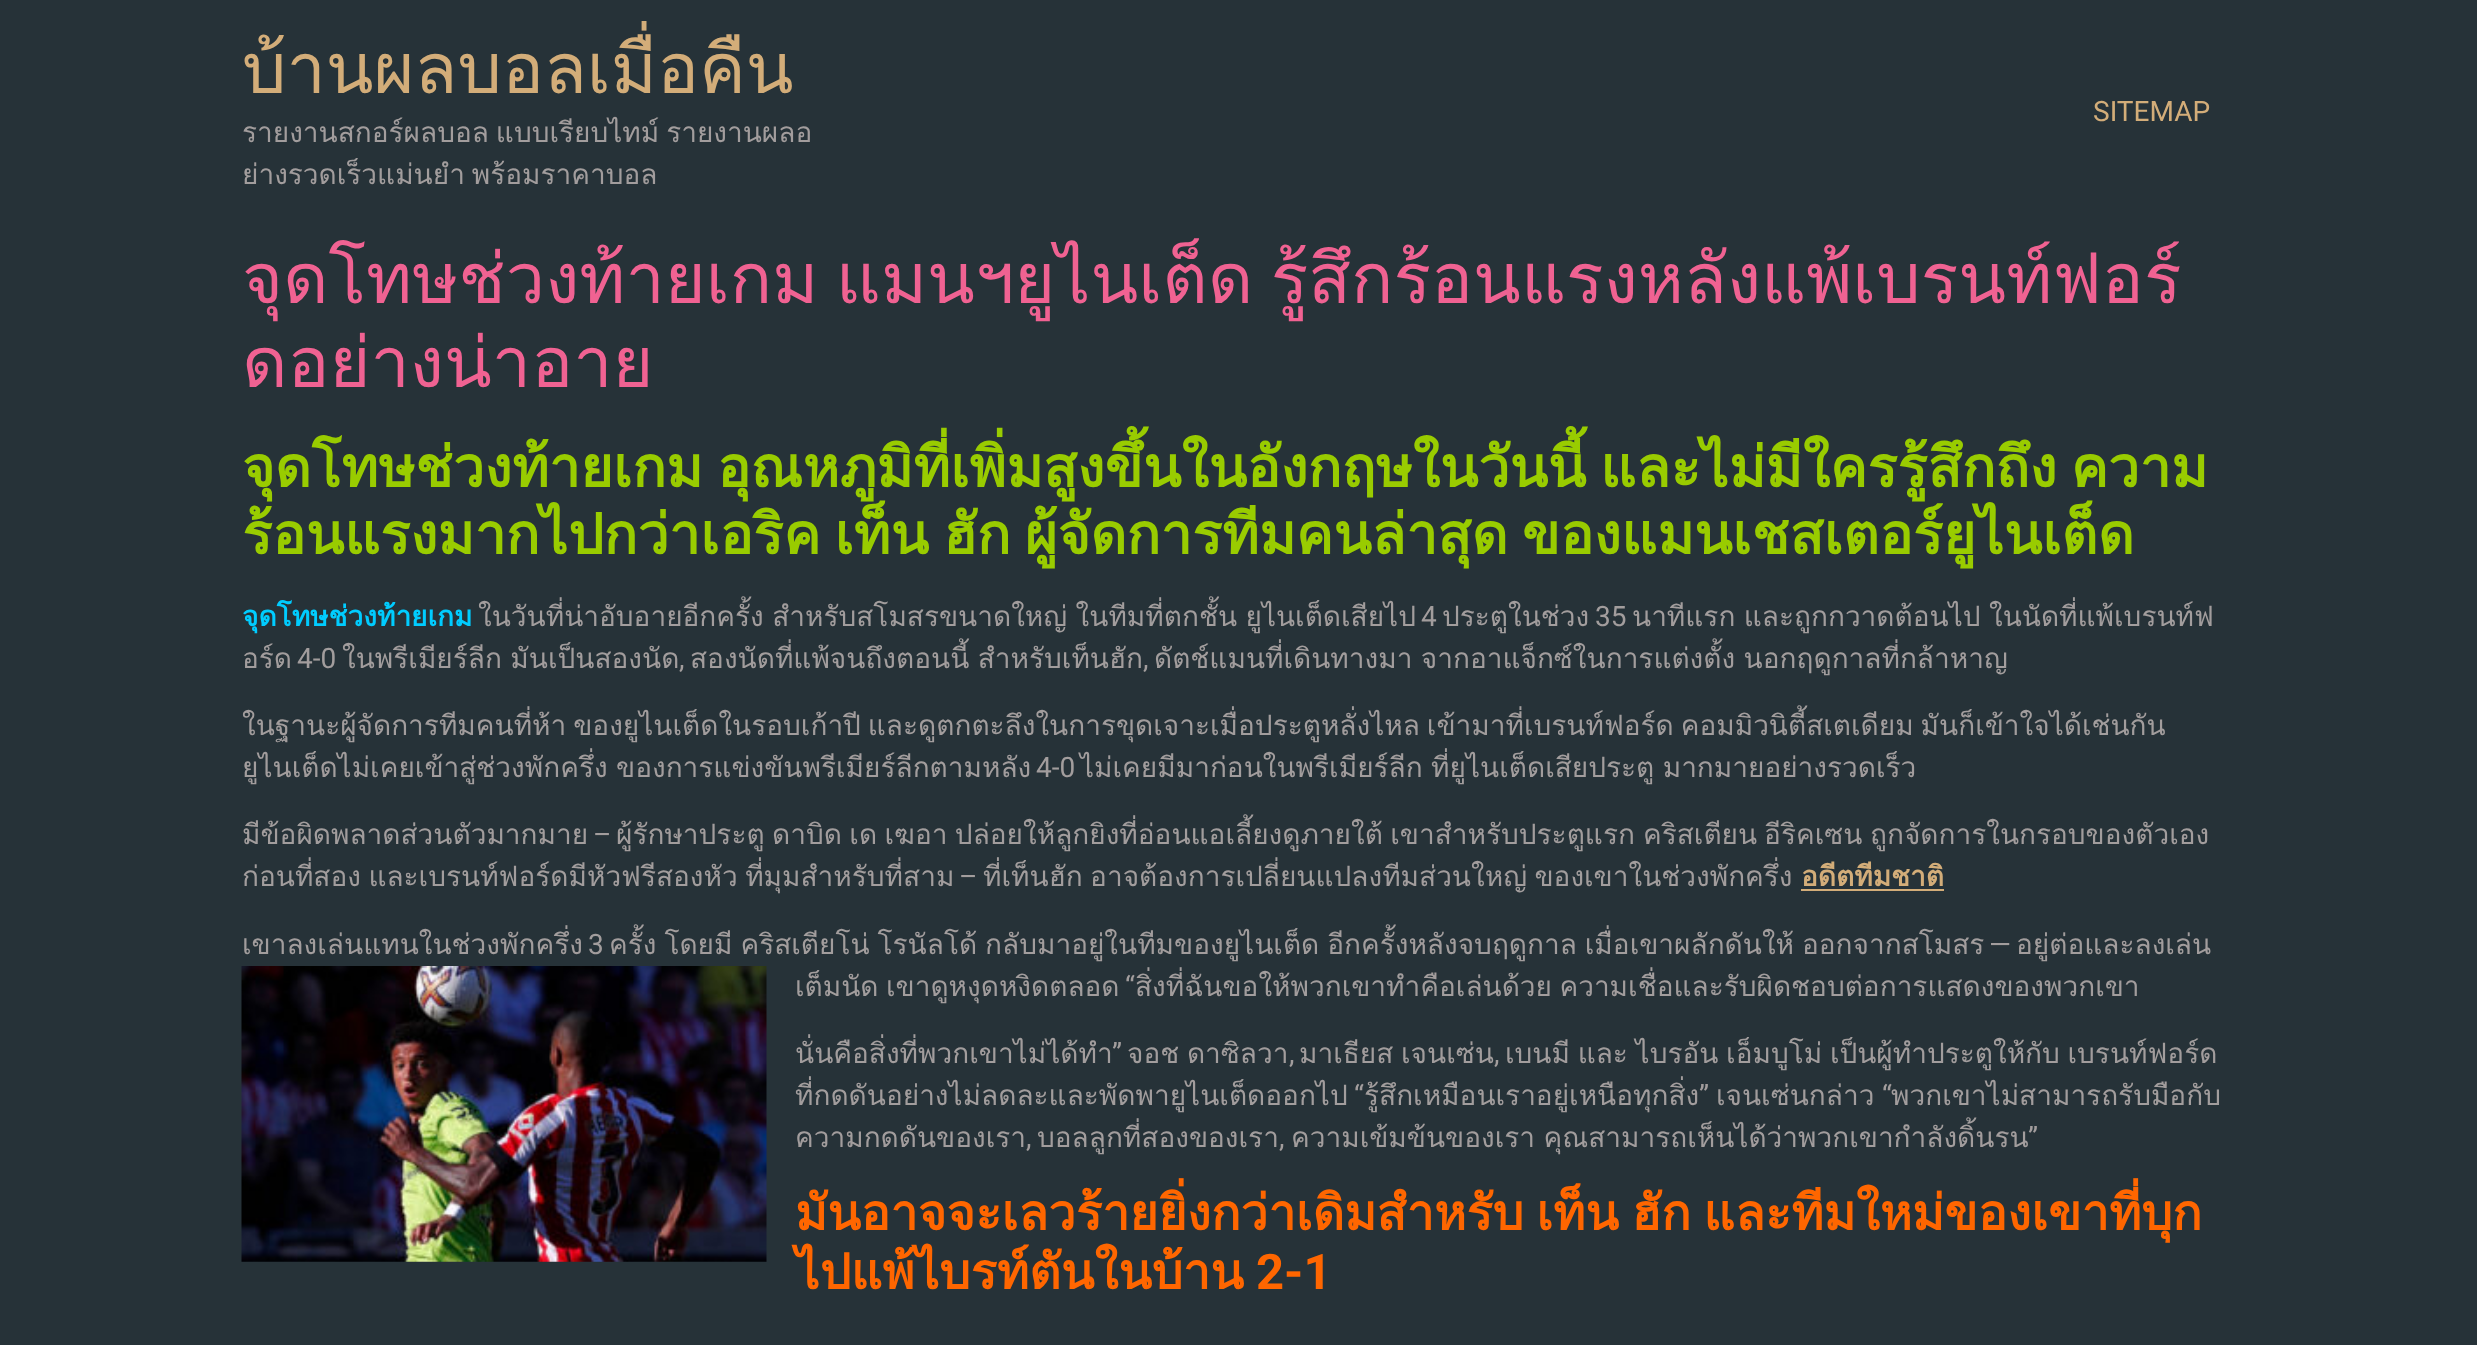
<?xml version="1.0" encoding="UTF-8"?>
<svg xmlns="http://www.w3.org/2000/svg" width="2477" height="1345">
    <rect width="100%" height="100%" fill="#263238"/>
    <text x="242" y="93" font-family="Loma" font-size="70" fill="#D3AD79">บ้านผลบอลเมื่อคืน</text>
    <text font-family="Loma" font-size="28" fill="#A29D9D">
        <tspan x="242" y="142" word-spacing="-2.5">รายงานสกอร์ผลบอล แบบเรียบไทม์ รายงานผลอ</tspan>
        <tspan x="242" y="184" word-spacing="-2.5">ย่างรวดเร็วแม่นยำ พร้อมราคาบอล</tspan>
    </text>
    <text x="2093" y="121" font-family="Roboto" font-size="28" fill="#D3AD79">SITEMAP</text>
    <text font-family="Loma" font-size="70" fill="#F06292">
        <tspan x="242" y="303" word-spacing="-6">จุดโทษช่วงท้ายเกม แมนฯยูไนเต็ด รู้สึกร้อนแรงหลังแพ้เบรนท์ฟอร์</tspan>
        <tspan x="242" y="387">ดอย่างน่าอาย</tspan>
    </text>
    <text font-family="Loma" font-size="56" font-weight="700" fill="#99CC00">
        <tspan x="242" y="487" word-spacing="-5">จุดโทษช่วงท้ายเกม อุณหภูมิที่เพิ่มสูงขึ้นในอังกฤษในวันนี้ และไม่มีใครรู้สึกถึง ความ</tspan>
        <tspan x="242" y="554" word-spacing="-5">ร้อนแรงมากไปกว่าเอริค เท็น ฮัก ผู้จัดการทีมคนล่าสุด ของแมนเชสเตอร์ยูไนเต็ด</tspan>
    </text>
    <text x="242" y="626" font-family="Loma" font-size="28" font-weight="700" fill="#00CCFF">จุดโทษช่วงท้ายเกม</text>
    <text x="478" y="626" word-spacing="-1" font-family="Loma" font-size="28" fill="#A29D9D">ในวันที่น่าอับอายอีกครั้ง สําหรับสโมสรขนาดใหญ่ ในทีมที่ตกชั้น ยูไนเต็ดเสียไป</text>
    <text x="1421" y="626" font-family="Roboto" font-size="28" fill="#A29D9D">4</text>
    <text x="1442" y="626" font-family="Loma" font-size="28" fill="#A29D9D">ประตูในช่วง</text>
    <text x="1595" y="626" font-family="Roboto" font-size="28" fill="#A29D9D">35</text>
    <text x="1632" y="626" word-spacing="-1" font-family="Loma" font-size="28" fill="#A29D9D">นาทีแรก และถูกกวาดต้อนไป ในนัดที่แพ้เบรนท์ฟ</text>
    <text x="242" y="668" font-family="Loma" font-size="28" fill="#A29D9D">อร์ด</text>
    <text x="297" y="668" font-family="Roboto" font-size="28" fill="#A29D9D">4-0</text>
    <text x="342" y="668" word-spacing="-1" font-family="Loma" font-size="28" fill="#A29D9D">ในพรีเมียร์ลีก มันเป็นสองนัด</text>
    <text x="679" y="668" font-family="Roboto" font-size="28" fill="#A29D9D">,</text>
    <text x="690" y="668" word-spacing="-1" font-family="Loma" font-size="28" fill="#A29D9D">สองนัดที่แพ้จนถึงตอนนี้ สําหรับเท็นฮัก</text>
    <text x="1143" y="668" font-family="Roboto" font-size="28" fill="#A29D9D">,</text>
    <text x="1154" y="668" word-spacing="-1" font-family="Loma" font-size="28" fill="#A29D9D">ดัตช์แมนที่เดินทางมา จากอาแจ็กซ์ในการแต่งตั้ง นอกฤดูกาลที่กล้าหาญ</text>
    <text font-family="Loma" font-size="28" fill="#A29D9D">
        <tspan x="242" y="735" word-spacing="-2.5">ในฐานะผู้จัดการทีมคนที่ห้า ของยูไนเต็ดในรอบเก้าปี และดูตกตะลึงในการขุดเจาะเมื่อประตูหลั่งไหล เข้ามาที่เบรนท์ฟอร์ด คอมมิวนิตี้สเตเดียม มันก็เข้าใจได้เช่นกัน</tspan>
        <tspan x="242" y="777" word-spacing="-1">ยูไนเต็ดไม่เคยเข้าสู่ช่วงพักครึ่ง ของการแข่งขันพรีเมียร์ลีกตามหลัง</tspan>
    </text>
    <text x="1036" y="777" font-family="Roboto" font-size="28" fill="#A29D9D">4-0</text>
    <text x="1080" y="777" word-spacing="-1" font-family="Loma" font-size="28" fill="#A29D9D">ไม่เคยมีมาก่อนในพรีเมียร์ลีก ที่ยูไนเต็ดเสียประตู มากมายอย่างรวดเร็ว</text>
    <text x="242" y="844" font-family="Loma" font-size="28" fill="#A29D9D">มีข้อผิดพลาดส่วนตัวมากมาย</text>
    <text x="593" y="844" font-family="Roboto" font-size="28" fill="#A29D9D">–</text>
    <text x="616" y="844" word-spacing="-2" font-family="Loma" font-size="28" fill="#A29D9D">ผู้รักษาประตู ดาบิด เด เฆอา ปล่อยให้ลูกยิงที่อ่อนแอเลี้ยงดูภายใต้ เขาสําหรับประตูแรก</text>
    <text x="1643" y="844" word-spacing="-2.5" font-family="Loma" font-size="28" fill="#A29D9D">คริสเตียน อีริคเซน</text>
    <text x="1870" y="844" font-family="Loma" font-size="28" fill="#A29D9D">ถูกจัดการในกรอบของตัวเอง</text>
    <text x="242" y="886" word-spacing="-2" font-family="Loma" font-size="28" fill="#A29D9D">ก่อนที่สอง และเบรนท์ฟอร์ดมีหัวฟรีสองหัว ที่มุมสําหรับที่สาม</text>
    <text x="959" y="886" font-family="Roboto" font-size="28" fill="#A29D9D">–</text>
    <text x="983" y="886" word-spacing="-2" font-family="Loma" font-size="28" fill="#A29D9D">ที่เท็นฮัก อาจต้องการเปลี่ยนแปลงทีมส่วนใหญ่ ของเขาในช่วงพักครึ่ง</text>
    <text x="1801" y="886" font-family="Loma" font-size="28" font-weight="700" fill="#D3AD79">อดีตทีมชาติ</text>
    <rect x="1801" y="889" width="143" height="2" fill="#D3AD79"/>
    <text x="242" y="954" font-family="Loma" font-size="28" fill="#A29D9D">เขาลงเล่นแทนในช่วงพักครึ่ง</text>
    <text x="588" y="954" font-family="Roboto" font-size="28" fill="#A29D9D">3</text>
    <text x="609" y="954" word-spacing="-1.5" font-family="Loma" font-size="28" fill="#A29D9D">ครั้ง โดยมี คริสเตียโน่ โรนัลโด้ กลับมาอยู่ในทีมของยูไนเต็ด อีกครั้งหลังจบฤดูกาล เมื่อเขาผลักดันให้ ออกจากสโมสร</text>
    <text x="1989" y="954" font-family="Roboto" font-size="28" fill="#A29D9D">—</text>
    <text x="2016" y="954" font-family="Loma" font-size="28" fill="#A29D9D">อยู่ต่อและลงเล่น</text>
    <image x="241" y="966" width="526" height="296" href="img_01.png"/>
    <text x="795" y="996" word-spacing="-2" font-family="Loma" font-size="28" fill="#A29D9D">เต็มนัด เขาดูหงุดหงิดตลอด</text>
    <text x="1125" y="996" font-family="Roboto" font-size="28" fill="#A29D9D">“</text>
    <text x="1135" y="996" word-spacing="-2" font-family="Loma" font-size="28" fill="#A29D9D">สิ่งที่ฉันขอให้พวกเขาทําคือเล่นด้วย ความเชื่อและรับผิดชอบต่อการแสดงของพวกเขา</text>
    <text x="795" y="1063" font-family="Loma" font-size="28" fill="#A29D9D">นั่นคือสิ่งที่พวกเขาไม่ได้ทํา</text>
    <text x="1112" y="1063" font-family="Roboto" font-size="28" fill="#A29D9D">”</text>
    <text x="1127" y="1063" word-spacing="-1.75" font-family="Loma" font-size="28" fill="#A29D9D">จอช ดาซิลวา</text>
    <text x="1299" y="1063" word-spacing="-1.75" font-family="Loma" font-size="28" fill="#A29D9D">มาเธียส เจนเซ่น</text>
    <text x="1505" y="1063" word-spacing="-1.75" font-family="Loma" font-size="28" fill="#A29D9D">เบนมี และ ไบรอัน เอ็มบูโม่ เป็นผู้ทําประตูให้กับ เบรนท์ฟอร์ด</text>
    <text x="1289" y="1063" font-family="Roboto" font-size="28" fill="#A29D9D">,</text>
    <text x="1494" y="1063" font-family="Roboto" font-size="28" fill="#A29D9D">,</text>
    <text x="795" y="1105" font-family="Loma" font-size="28" fill="#A29D9D">ที่กดดันอย่างไม่ลดละและพัดพายูไนเต็ดออกไป</text>
    <text x="1354" y="1105" font-family="Roboto" font-size="28" fill="#A29D9D">“</text>
    <text x="1364" y="1105" font-family="Loma" font-size="28" fill="#A29D9D">รู้สึกเหมือนเราอยู่เหนือทุกสิ่ง</text>
    <text x="1891" y="1105" font-family="Loma" font-size="28" fill="#A29D9D">พวกเขาไม่สามารถรับมือกับ</text>
    <text x="1699" y="1105" font-family="Roboto" font-size="28" fill="#A29D9D">”</text>
    <text x="1716" y="1105" font-family="Loma" font-size="28" fill="#A29D9D">เจนเซ่นกล่าว</text>
    <text x="1882" y="1105" font-family="Roboto" font-size="28" fill="#A29D9D">“</text>
    <text x="795" y="1147" font-family="Loma" font-size="28" fill="#A29D9D">ความกดดันของเรา</text>
    <text x="1037" y="1147" font-family="Loma" font-size="28" fill="#A29D9D">บอลลูกที่สองของเรา</text>
    <text x="1291" y="1147" word-spacing="-1" font-family="Loma" font-size="28" fill="#A29D9D">ความเข้มข้นของเรา คุณสามารถเห็นได้ว่าพวกเขากําลังดิ้นรน</text>
    <text x="2028" y="1147" font-family="Roboto" font-size="28" fill="#A29D9D">”</text>
    <text x="1026" y="1147" font-family="Roboto" font-size="28" fill="#A29D9D">,</text>
    <text x="1279" y="1147" font-family="Roboto" font-size="28" fill="#A29D9D">,</text>
    <text font-family="Loma" font-size="49" font-weight="700" fill="#FF6600">
        <tspan x="795" y="1230" word-spacing="-4">มันอาจจะเลวร้ายยิ่งกว่าเดิมสําหรับ เท็น ฮัก และทีมใหม่ของเขาที่บุก</tspan>
        <tspan x="795" y="1289">ไปแพ้ไบรท์ตันในบ้าน</tspan>
    </text>
    <text x="1256" y="1289" font-family="Roboto" font-size="49" font-weight="700" fill="#FF6600">2-1</text>
</svg>
